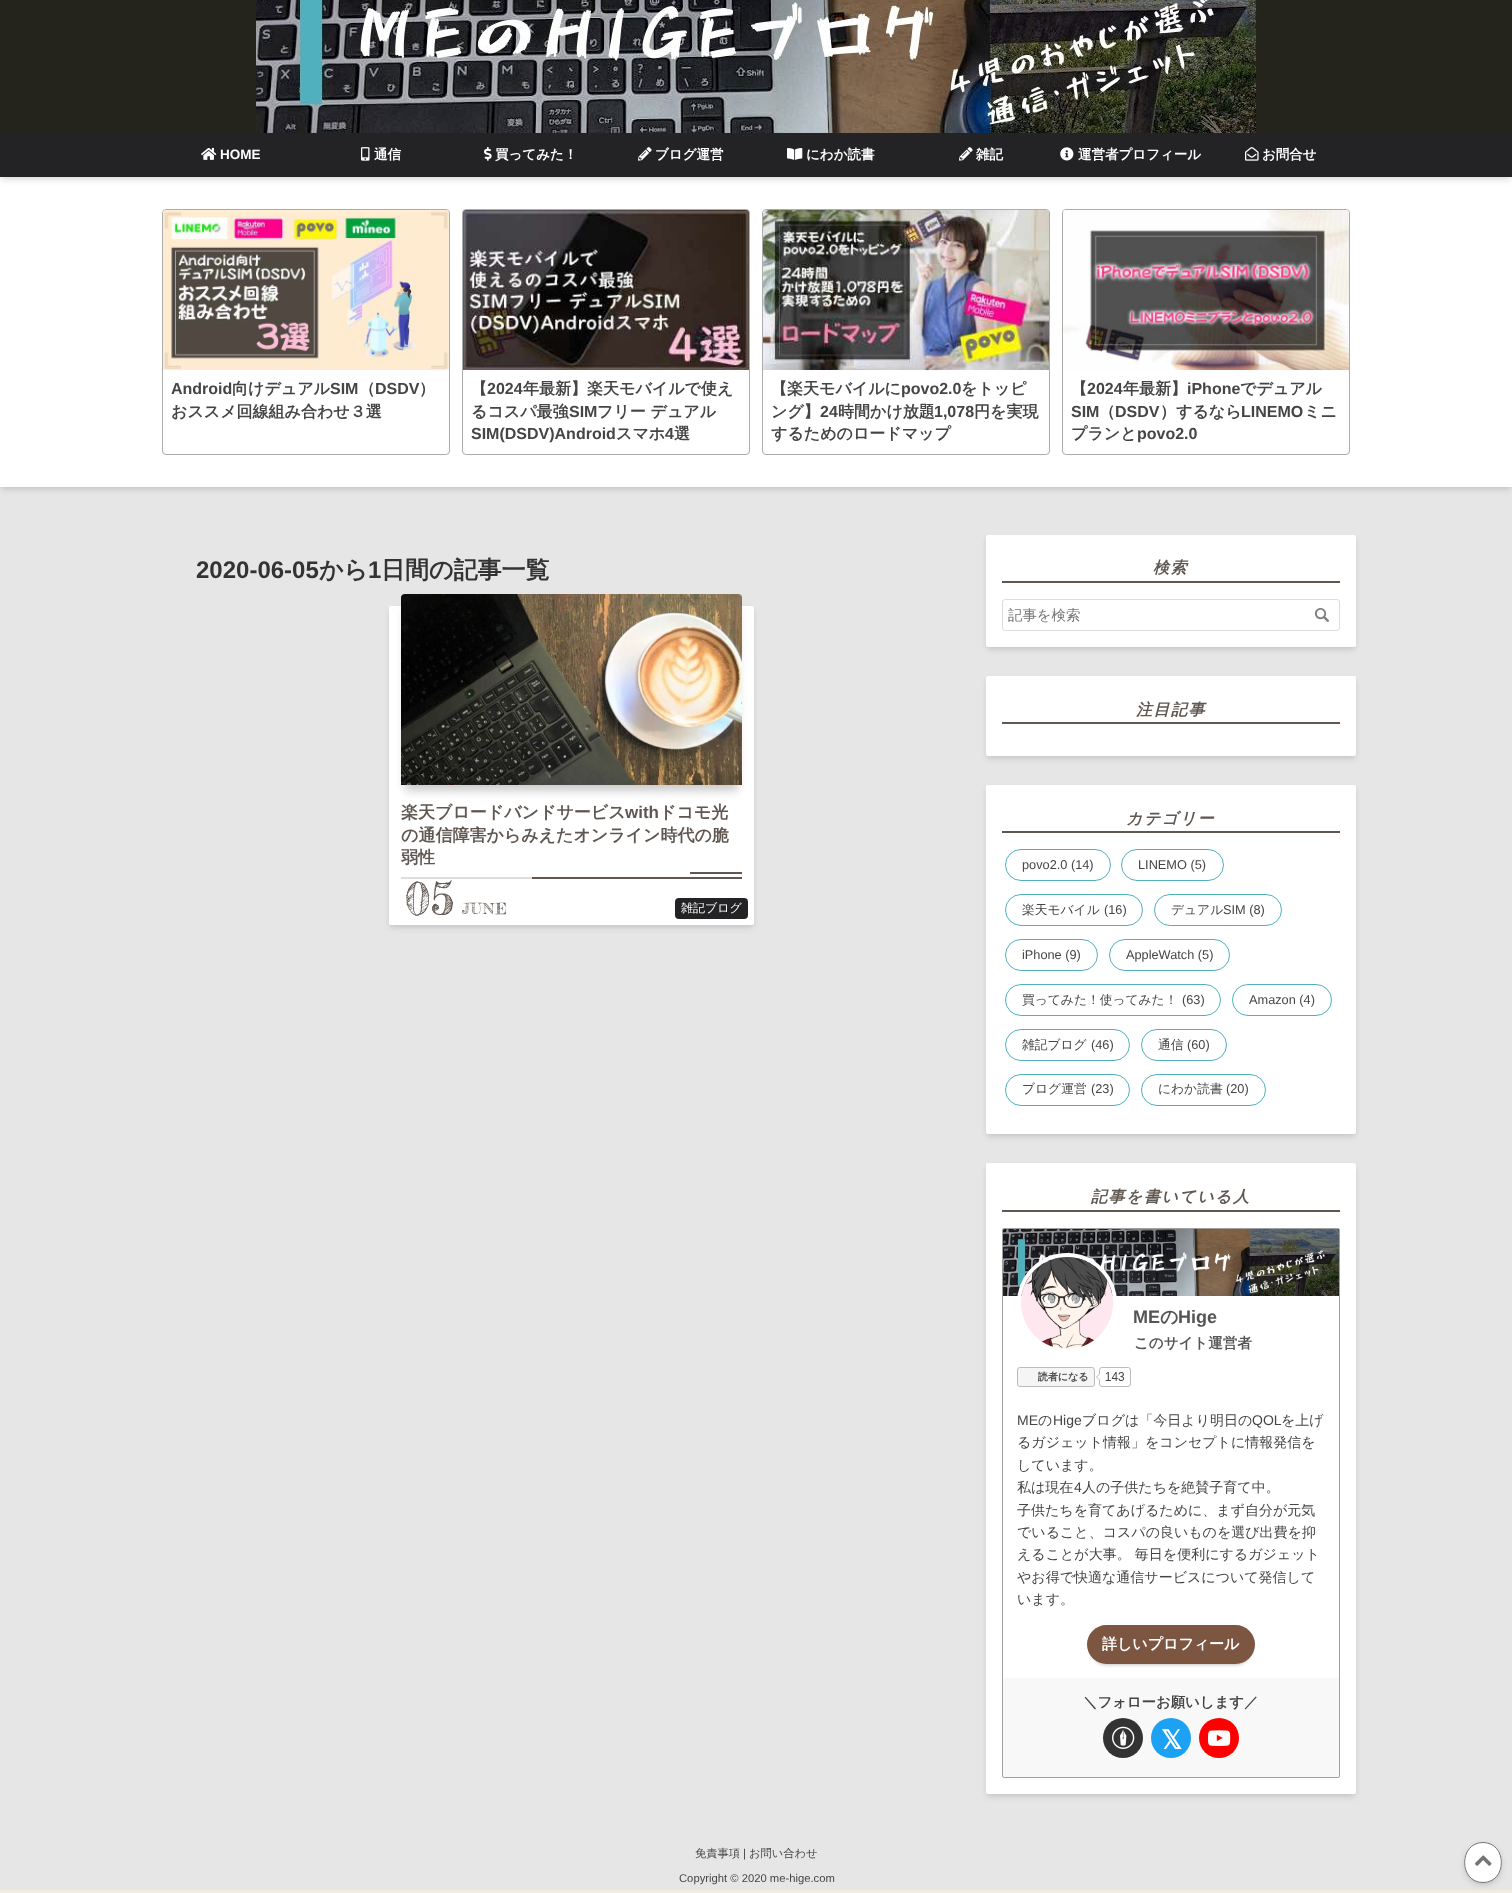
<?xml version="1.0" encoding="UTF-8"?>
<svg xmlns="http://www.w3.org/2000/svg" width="1512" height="1893">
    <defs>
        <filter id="blur1" x="-50%" y="-200%" width="200%" height="500%"><feGaussianBlur stdDeviation="2"/></filter>
        <filter id="blur2" x="-50%" y="-200%" width="200%" height="500%"><feGaussianBlur stdDeviation="3"/></filter>
        <filter id="blur3" x="-50%" y="-200%" width="200%" height="500%"><feGaussianBlur stdDeviation="5"/></filter>
        <filter id="blur4" x="-50%" y="-200%" width="200%" height="500%"><feGaussianBlur stdDeviation="2.5"/></filter>
    </defs>
    <rect width="100%" height="100%" fill="#F3EBDD"/>
    <rect x="0" y="487" width="1512" height="1403" fill="#E6E6E6"/>
    <rect x="0" y="0" width="1512" height="133" fill="#25241C"/>
    <image x="256" y="0" width="1000" height="133" href="img_01.png"/>
    <rect x="1" y="180" width="1510" height="308" fill="#000000" fill-opacity="0.06" filter="url(#blur1)"/>
    <rect x="1" y="182" width="1510" height="308" fill="#000000" fill-opacity="0.1" filter="url(#blur2)"/>
    <rect x="0" y="177" width="1512" height="310" fill="#FFFFFF"/>
    <rect x="1" y="136" width="1510" height="42" fill="#000000" fill-opacity="0.06" filter="url(#blur1)"/>
    <rect x="1" y="138" width="1510" height="42" fill="#000000" fill-opacity="0.1" filter="url(#blur2)"/>
    <rect x="0" y="133" width="1512" height="44" fill="#232326"/>
    <image x="201" y="147" width="16" height="13" href="img_02.png"/>
    <text x="220" y="159" font-family="Liberation Sans" font-size="13.5" font-weight="700" fill="#FFFFFF">HOME</text>
    <image x="361" y="147" width="9" height="14" href="img_03.png"/>
    <text x="374" y="159" font-family="WenQuanYi Zen Hei" font-size="13.5" font-weight="700" fill="#FFFFFF">通信</text>
    <image x="484" y="147" width="8" height="14" href="img_04.png"/>
    <text x="495" y="159" font-family="WenQuanYi Zen Hei" font-size="13.5" font-weight="700" fill="#FFFFFF">買ってみた！</text>
    <image x="638" y="147" width="14" height="14" href="img_05.png"/>
    <text x="655" y="159" font-family="WenQuanYi Zen Hei" font-size="13.5" font-weight="700" fill="#FFFFFF">ブログ運営</text>
    <image x="787" y="148" width="16" height="12" href="img_06.png"/>
    <text x="806" y="159" font-family="WenQuanYi Zen Hei" font-size="13.5" font-weight="700" fill="#FFFFFF">にわか読書</text>
    <image x="959" y="147" width="14" height="14" href="img_05.png"/>
    <text x="976" y="159" font-family="WenQuanYi Zen Hei" font-size="13.5" font-weight="700" fill="#FFFFFF">雑記</text>
    <image x="1060" y="147" width="14" height="14" href="img_07.png"/>
    <text x="1078" y="159" font-family="WenQuanYi Zen Hei" font-size="13.5" font-weight="700" fill="#FFFFFF">運営者プロフィール</text>
    <image x="1245" y="147" width="14" height="14" href="img_08.png"/>
    <text x="1262" y="159" font-family="WenQuanYi Zen Hei" font-size="13.5" font-weight="700" fill="#FFFFFF">お問合せ</text>
    <rect x="162.5" y="209.5" width="287" height="245" rx="3.5" fill="none" stroke="#ACACAC"/>
    <image x="163" y="210" width="286" height="160" href="img_09.png"/>
    <text x="171" y="394" font-family="Liberation Sans" font-size="16" font-weight="700" fill="#454545">Android</text>
    <text x="232" y="394" font-family="WenQuanYi Zen Hei" font-size="16" font-weight="700" fill="#454545">向けデュアル</text>
    <text x="330" y="394" font-family="Liberation Sans" font-size="16" font-weight="700" fill="#454545">SIM</text>
    <text x="359" y="394" font-family="WenQuanYi Zen Hei" font-size="16" font-weight="700" fill="#454545">（</text>
    <text x="375" y="394" font-family="Liberation Sans" font-size="16" font-weight="700" fill="#454545">DSDV</text>
    <text x="419" y="394" font-family="WenQuanYi Zen Hei" font-size="16" font-weight="700" fill="#454545">）</text>
    <text x="171" y="417" font-family="WenQuanYi Zen Hei" font-size="16" font-weight="700" fill="#454545">おススメ回線組み合わせ３選</text>
    <rect x="462.5" y="209.5" width="287" height="245" rx="3.5" fill="none" stroke="#ACACAC"/>
    <image x="463" y="210" width="286" height="160" href="img_10.png"/>
    <text x="471" y="394" font-family="WenQuanYi Zen Hei" font-size="16" font-weight="700" fill="#454545">【</text>
    <text x="487" y="394" font-family="Liberation Sans" font-size="16" font-weight="700" fill="#454545">2024</text>
    <text x="523" y="394" font-family="WenQuanYi Zen Hei" font-size="16" font-weight="700" fill="#454545">年最新】楽天モバイルで使え</text>
    <text x="471" y="417" font-family="WenQuanYi Zen Hei" font-size="16" font-weight="700" fill="#454545">るコスパ最強</text>
    <text x="569" y="417" font-family="Liberation Sans" font-size="16" font-weight="700" fill="#454545">SIM</text>
    <text x="597" y="417" font-family="WenQuanYi Zen Hei" font-size="16" font-weight="700" fill="#454545">フリー デュアル</text>
    <text x="471" y="439" font-family="Liberation Sans" font-size="16" font-weight="700" fill="#454545">SIM(DSDV)Android</text>
    <text x="616" y="439" font-family="WenQuanYi Zen Hei" font-size="16" font-weight="700" fill="#454545">スマホ</text>
    <text x="665" y="439" font-family="Liberation Sans" font-size="16" font-weight="700" fill="#454545">4</text>
    <text x="674" y="439" font-family="WenQuanYi Zen Hei" font-size="16" font-weight="700" fill="#454545">選</text>
    <rect x="762.5" y="209.5" width="287" height="245" rx="3.5" fill="none" stroke="#ACACAC"/>
    <image x="763" y="210" width="286" height="160" href="img_11.png"/>
    <text x="771" y="394" font-family="WenQuanYi Zen Hei" font-size="16" font-weight="700" fill="#454545">【楽天モバイルに</text>
    <text x="901" y="394" font-family="Liberation Sans" font-size="16" font-weight="700" fill="#454545">povo2.0</text>
    <text x="961" y="394" font-family="WenQuanYi Zen Hei" font-size="16" font-weight="700" fill="#454545">をトッピ</text>
    <text x="771" y="417" font-family="WenQuanYi Zen Hei" font-size="16" font-weight="700" fill="#454545">ング】</text>
    <text x="820" y="417" font-family="Liberation Sans" font-size="16" font-weight="700" fill="#454545">24</text>
    <text x="838" y="417" font-family="WenQuanYi Zen Hei" font-size="16" font-weight="700" fill="#454545">時間かけ放題</text>
    <text x="934" y="417" font-family="Liberation Sans" font-size="16" font-weight="700" fill="#454545">1,078</text>
    <text x="974" y="417" font-family="WenQuanYi Zen Hei" font-size="16" font-weight="700" fill="#454545">円を実現</text>
    <text x="771" y="439" font-family="WenQuanYi Zen Hei" font-size="16" font-weight="700" fill="#454545">するためのロードマップ</text>
    <rect x="1062.5" y="209.5" width="287" height="245" rx="3.5" fill="none" stroke="#ACACAC"/>
    <image x="1063" y="210" width="286" height="160" href="img_12.png"/>
    <text x="1071" y="394" font-family="WenQuanYi Zen Hei" font-size="16" font-weight="700" fill="#454545">【</text>
    <text x="1087" y="394" font-family="Liberation Sans" font-size="16" font-weight="700" fill="#454545">2024</text>
    <text x="1123" y="394" font-family="WenQuanYi Zen Hei" font-size="16" font-weight="700" fill="#454545">年最新】</text>
    <text x="1187" y="394" font-family="Liberation Sans" font-size="16" font-weight="700" fill="#454545">iPhone</text>
    <text x="1240" y="394" font-family="WenQuanYi Zen Hei" font-size="16" font-weight="700" fill="#454545">でデュアル</text>
    <text x="1071" y="417" font-family="Liberation Sans" font-size="16" font-weight="700" fill="#454545">SIM</text>
    <text x="1099" y="417" font-family="WenQuanYi Zen Hei" font-size="16" font-weight="700" fill="#454545">（</text>
    <text x="1115" y="417" font-family="Liberation Sans" font-size="16" font-weight="700" fill="#454545">DSDV</text>
    <text x="1160" y="417" font-family="WenQuanYi Zen Hei" font-size="16" font-weight="700" fill="#454545">）するなら</text>
    <text x="1241" y="417" font-family="Liberation Sans" font-size="16" font-weight="700" fill="#454545">LINEMO</text>
    <text x="1304" y="417" font-family="WenQuanYi Zen Hei" font-size="16" font-weight="700" fill="#454545">ミニ</text>
    <text x="1071" y="439" font-family="WenQuanYi Zen Hei" font-size="16" font-weight="700" fill="#454545">プランと</text>
    <text x="1137" y="439" font-family="Liberation Sans" font-size="16" font-weight="700" fill="#454545">povo2.0</text>
    <text x="196" y="578" font-family="Liberation Sans" font-size="24" font-weight="700" fill="#333333">2020-06-05</text>
    <text x="319" y="578" font-family="WenQuanYi Zen Hei" font-size="24" font-weight="700" fill="#333333">から</text>
    <text x="368" y="578" font-family="Liberation Sans" font-size="24" font-weight="700" fill="#333333">1</text>
    <text x="381" y="578" font-family="WenQuanYi Zen Hei" font-size="24" font-weight="700" fill="#333333">日間の記事一覧</text>
    <rect x="390" y="609" width="363" height="317" rx="1" fill="#000000" fill-opacity="0.06" filter="url(#blur1)"/>
    <rect x="390" y="611" width="363" height="317" rx="1" fill="#000000" fill-opacity="0.1" filter="url(#blur2)"/>
    <rect x="389" y="606" width="365" height="319" rx="2" fill="#FFFFFF"/>
    <rect x="405" y="608" width="333" height="183" fill="#000000" fill-opacity="0.2" filter="url(#blur3)"/>
    <image x="401" y="594" width="341" height="191" href="img_13.png"/>
    <rect x="401" y="877" width="341" height="2" fill="#5F5750"/>
    <text x="401" y="818" font-family="WenQuanYi Zen Hei" font-size="17" font-weight="700" fill="#5F5750">楽天ブロードバンドサービス</text>
    <text x="625" y="818" font-family="Liberation Sans" font-size="17" font-weight="700" fill="#5F5750">with</text>
    <text x="659" y="818" font-family="WenQuanYi Zen Hei" font-size="17" font-weight="700" fill="#5F5750">ドコモ光</text>
    <text font-family="WenQuanYi Zen Hei" font-size="17" font-weight="700" fill="#5F5750">
        <tspan x="401" y="841">の通信障害からみえたオンライン時代の脆</tspan>
        <tspan x="401" y="863">弱性</tspan>
    </text>
    <rect x="690" y="872" width="52" height="2" fill="#5F5750"/>
    <rect x="389" y="874" width="143" height="51" rx="2" fill="#FFFFFF" fill-opacity="0.8"/>
    <text x="405" y="915" font-family="Fredericka the Great" font-size="45" fill="#5F5750">05</text>
    <text x="462" y="914" font-family="Fredericka the Great" font-size="15" letter-spacing="1.5" fill="#5F5750">JUNE</text>
    <rect x="675" y="898" width="73" height="21" rx="4" fill="#232326"/>
    <text x="681" y="912" font-family="WenQuanYi Zen Hei" font-size="12" font-weight="500" fill="#FFFFFF">雑記ブログ</text>
    <rect x="987" y="538" width="368" height="110" rx="1" fill="#000000" fill-opacity="0.06" filter="url(#blur1)"/>
    <rect x="987" y="540" width="368" height="110" rx="1" fill="#000000" fill-opacity="0.1" filter="url(#blur2)"/>
    <rect x="986" y="535" width="370" height="112" rx="2" fill="#FFFFFF"/>
    <rect x="1002" y="581" width="338" height="2" fill="#5F5750"/>
    <text x="1153" y="573" font-family="WenQuanYi Zen Hei" font-size="16" font-weight="700" font-style="italic" letter-spacing="1.5" fill="#5F5750">検索</text>
    <rect x="1002.5" y="599.5" width="337" height="31" rx="2.5" fill="none" stroke="#DDDDDD"/>
    <text x="1008" y="620" font-family="WenQuanYi Zen Hei" font-size="14.4" font-weight="500" fill="#757575">記事を検索</text>
    <image x="1314" y="608" width="15" height="14" href="img_14.png"/>
    <rect x="987" y="679" width="368" height="78" rx="1" fill="#000000" fill-opacity="0.06" filter="url(#blur1)"/>
    <rect x="987" y="681" width="368" height="78" rx="1" fill="#000000" fill-opacity="0.1" filter="url(#blur2)"/>
    <rect x="986" y="676" width="370" height="80" rx="2" fill="#FFFFFF"/>
    <rect x="1002" y="722" width="338" height="2" fill="#5F5750"/>
    <text x="1136" y="715" font-family="WenQuanYi Zen Hei" font-size="16" font-weight="700" font-style="italic" letter-spacing="1.5" fill="#5F5750">注目記事</text>
    <rect x="987" y="788" width="368" height="347" rx="1" fill="#000000" fill-opacity="0.06" filter="url(#blur1)"/>
    <rect x="987" y="790" width="368" height="347" rx="1" fill="#000000" fill-opacity="0.1" filter="url(#blur2)"/>
    <rect x="986" y="785" width="370" height="349" rx="2" fill="#FFFFFF"/>
    <rect x="1002" y="831" width="338" height="2" fill="#5F5750"/>
    <text x="1126" y="824" font-family="WenQuanYi Zen Hei" font-size="16" font-weight="700" font-style="italic" letter-spacing="1.5" fill="#5F5750">カテゴリー</text>
    <rect x="1005.5" y="849.5" width="105" height="31" rx="15.5" fill="none" stroke="#51B0BD"/>
    <text x="1022" y="869" font-family="Liberation Sans" font-size="12.75" fill="#454545">povo2.0 (14)</text>
    <rect x="1121.5" y="849.5" width="102" height="31" rx="15.5" fill="none" stroke="#51B0BD"/>
    <text x="1138" y="869" font-family="Liberation Sans" font-size="12.75" fill="#454545">LINEMO (5)</text>
    <rect x="1005.5" y="894.5" width="137" height="31" rx="15.5" fill="none" stroke="#51B0BD"/>
    <text x="1022" y="914" font-family="WenQuanYi Zen Hei" font-size="12.75" font-weight="500" fill="#454545">楽天モバイル</text>
    <text x="1104" y="914" font-family="Liberation Sans" font-size="12.75" fill="#454545">(16)</text>
    <rect x="1154.5" y="894.5" width="127" height="31" rx="15.5" fill="none" stroke="#51B0BD"/>
    <text x="1171" y="914" font-family="WenQuanYi Zen Hei" font-size="12.75" font-weight="500" fill="#454545">デュアル</text>
    <text x="1223" y="914" font-family="Liberation Sans" font-size="12.75" fill="#454545">SIM (8)</text>
    <rect x="1005.5" y="939.5" width="92" height="31" rx="15.5" fill="none" stroke="#51B0BD"/>
    <text x="1022" y="959" font-family="Liberation Sans" font-size="12.75" fill="#454545">iPhone (9)</text>
    <rect x="1109.5" y="939.5" width="120" height="31" rx="15.5" fill="none" stroke="#51B0BD"/>
    <text x="1126" y="959" font-family="Liberation Sans" font-size="12.75" fill="#454545">AppleWatch (5)</text>
    <rect x="1005.5" y="984.5" width="215" height="31" rx="15.5" fill="none" stroke="#51B0BD"/>
    <text x="1022" y="1004" font-family="WenQuanYi Zen Hei" font-size="12.75" font-weight="500" fill="#454545">買ってみた！使ってみた！</text>
    <text x="1182" y="1004" font-family="Liberation Sans" font-size="12.75" fill="#454545">(63)</text>
    <rect x="1232.5" y="984.5" width="99" height="31" rx="15.5" fill="none" stroke="#51B0BD"/>
    <text x="1249" y="1004" font-family="Liberation Sans" font-size="12.75" fill="#454545">Amazon (4)</text>
    <rect x="1005.5" y="1029.5" width="124" height="31" rx="15.5" fill="none" stroke="#51B0BD"/>
    <text x="1022" y="1049" font-family="WenQuanYi Zen Hei" font-size="12.75" font-weight="500" fill="#454545">雑記ブログ</text>
    <text x="1091" y="1049" font-family="Liberation Sans" font-size="12.75" fill="#454545">(46)</text>
    <rect x="1141.5" y="1029.5" width="85" height="31" rx="15.5" fill="none" stroke="#51B0BD"/>
    <text x="1158" y="1049" font-family="WenQuanYi Zen Hei" font-size="12.75" font-weight="500" fill="#454545">通信</text>
    <text x="1187" y="1049" font-family="Liberation Sans" font-size="12.75" fill="#454545">(60)</text>
    <rect x="1005.5" y="1074.5" width="124" height="31" rx="15.5" fill="none" stroke="#51B0BD"/>
    <text x="1022" y="1093" font-family="WenQuanYi Zen Hei" font-size="12.75" font-weight="500" fill="#454545">ブログ運営</text>
    <text x="1091" y="1093" font-family="Liberation Sans" font-size="12.75" fill="#454545">(23)</text>
    <rect x="1141.5" y="1074.5" width="124" height="31" rx="15.5" fill="none" stroke="#51B0BD"/>
    <text x="1158" y="1093" font-family="WenQuanYi Zen Hei" font-size="12.75" font-weight="500" fill="#454545">にわか読書</text>
    <text x="1226" y="1093" font-family="Liberation Sans" font-size="12.75" fill="#454545">(20)</text>
    <rect x="987" y="1166" width="368" height="629" rx="1" fill="#000000" fill-opacity="0.06" filter="url(#blur1)"/>
    <rect x="987" y="1168" width="368" height="629" rx="1" fill="#000000" fill-opacity="0.1" filter="url(#blur2)"/>
    <rect x="986" y="1163" width="370" height="631" rx="2" fill="#FFFFFF"/>
    <rect x="1002" y="1210" width="338" height="2" fill="#5F5750"/>
    <text x="1091" y="1202" font-family="WenQuanYi Zen Hei" font-size="16" font-weight="700" font-style="italic" letter-spacing="1.5" fill="#5F5750">記事を書いている人</text>
    <rect x="1002.5" y="1228.5" width="337" height="549" rx="1.5" fill="none" stroke="#A0A0A0"/>
    <image x="1003" y="1229" width="336" height="67" href="img_15.png"/>
    <circle cx="1067" cy="1303" r="48" fill="none" stroke="#FFFFFF" stroke-width="4"/>
    <image x="1021" y="1257" width="92" height="92" href="img_16.png"/>
    <text x="1133" y="1323" font-family="Liberation Sans" font-size="18" font-weight="700" fill="#555555">ME</text>
    <text x="1160" y="1323" font-family="WenQuanYi Zen Hei" font-size="18" font-weight="700" fill="#555555">の</text>
    <text x="1178" y="1323" font-family="Liberation Sans" font-size="18" font-weight="700" fill="#555555">Hige</text>
    <text x="1134" y="1348" font-family="WenQuanYi Zen Hei" font-size="14.5" font-weight="700" fill="#555555">このサイト運営者</text>
    <image x="1017" y="1367" width="114" height="20" href="img_17.png"/>
    <text x="1017" y="1425" font-family="Liberation Sans" font-size="14" fill="#454545">ME</text>
    <text x="1038" y="1425" font-family="WenQuanYi Zen Hei" font-size="14" font-weight="500" fill="#454545">の</text>
    <text x="1053" y="1425" font-family="Liberation Sans" font-size="14" fill="#454545">Hige</text>
    <text x="1082" y="1425" font-family="WenQuanYi Zen Hei" font-size="14" font-weight="500" fill="#454545">ブログは「今日より明日の</text>
    <text x="1252" y="1425" font-family="Liberation Sans" font-size="14" fill="#454545">QOL</text>
    <text x="1281" y="1425" font-family="WenQuanYi Zen Hei" font-size="14" font-weight="500" fill="#454545">を上げ</text>
    <text font-family="WenQuanYi Zen Hei" font-size="14" font-weight="500" fill="#454545">
        <tspan x="1017" y="1447">るガジェット情報」をコンセプトに情報発信を</tspan>
        <tspan x="1017" y="1470">しています。</tspan>
        <tspan x="1017" y="1492">私は現在</tspan>
    </text>
    <text x="1074" y="1492" font-family="Liberation Sans" font-size="14" fill="#454545">4</text>
    <text x="1082" y="1492" font-family="WenQuanYi Zen Hei" font-size="14" font-weight="500" fill="#454545">人の子供たちを絶賛子育て中。</text>
    <text font-family="WenQuanYi Zen Hei" font-size="14" font-weight="500" fill="#454545">
        <tspan x="1017" y="1515">子供たちを育てあげるために、まず自分が元気</tspan>
        <tspan x="1017" y="1537">でいること、コスパの良いものを選び出費を抑</tspan>
        <tspan x="1017" y="1559">えることが大事。 毎日を便利にするガジェット</tspan>
        <tspan x="1017" y="1582">やお得で快適な通信サービスについて発信して</tspan>
        <tspan x="1017" y="1604">います。</tspan>
    </text>
    <rect x="1092" y="1634" width="158" height="29" rx="14.5" fill="#000000" fill-opacity="0.5" filter="url(#blur4)"/>
    <rect x="1087" y="1625" width="168" height="39" rx="19.5" fill="#7D5642"/>
    <text x="1102" y="1649" font-family="WenQuanYi Zen Hei" font-size="15" font-weight="700" fill="#FFFFFF">詳しいプロフィール</text>
    <rect x="1003" y="1678" width="336" height="99" fill="#C8C8C8" fill-opacity="0.12"/>
    <text x="1083" y="1707" font-family="WenQuanYi Zen Hei" font-size="14.4" font-weight="700" fill="#454545">＼フォローお願いします／</text>
    <circle cx="1123" cy="1738" r="20" fill="#333333"/>
    <image x="1112" y="1726" width="23" height="23" href="img_18.png"/>
    <circle cx="1171" cy="1738" r="20" fill="#1DA1F2"/>
    <text x="1161" y="1749" font-family="DejaVu Sans" font-size="26" font-weight="700" fill="#FFFFFF">𝕏</text>
    <circle cx="1219" cy="1738" r="20" fill="#FF0000"/>
    <image x="1208" y="1730" width="23" height="16" href="img_19.png"/>
    <text x="695" y="1857" font-family="WenQuanYi Zen Hei" font-size="11.25" font-weight="500" fill="#454545">免責事項</text>
    <text x="743" y="1857" font-family="Liberation Sans" font-size="11.25" fill="#454545">|</text>
    <text x="749" y="1857" font-family="WenQuanYi Zen Hei" font-size="11.25" font-weight="500" fill="#454545">お問い合わせ</text>
    <text x="679" y="1882" font-family="Liberation Sans" font-size="11.25" fill="#454545">Copyright © 2020 me-hige.com</text>
    <rect x="1468" y="1849" width="30" height="33" rx="15" fill="#000000" fill-opacity="0.2" filter="url(#blur3)"/>
    <rect x="1470" y="1850" width="26" height="29" rx="13" fill="#000000" fill-opacity="0.5" filter="url(#blur3)"/>
    <ellipse cx="1483" cy="1862.5" rx="19" ry="20.5" fill="#FFFFFF"/>
    <path d="M 1483 1842.5 C 1507.5 1842.5 1507.5 1882.5 1483 1882.5 C 1458.5 1882.5 1458.5 1842.5 1483 1842.5 Z" fill="none" stroke="#737373"/>
    <image x="1475" y="1855" width="17" height="11" href="img_20.png"/>
</svg>
